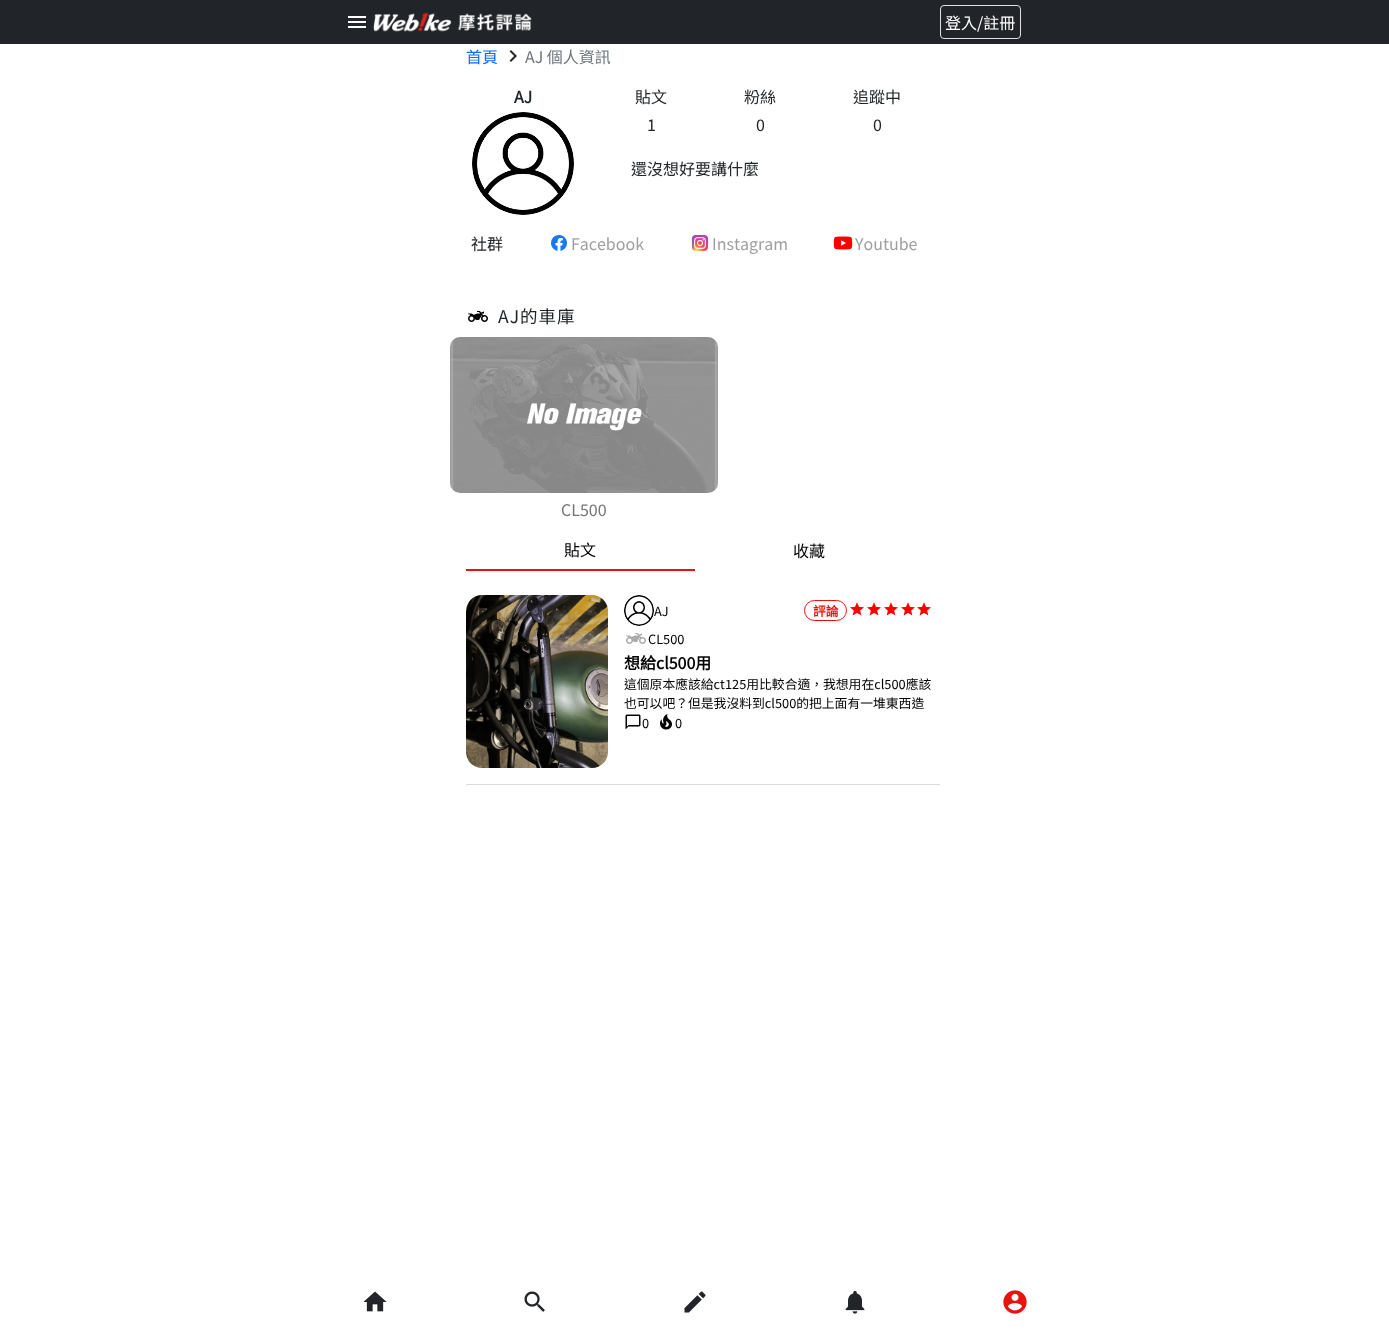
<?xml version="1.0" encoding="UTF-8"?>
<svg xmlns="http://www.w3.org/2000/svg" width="1389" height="1329">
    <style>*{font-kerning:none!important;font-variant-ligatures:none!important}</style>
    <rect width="100%" height="100%" fill="#FFFFFF"/>
    <rect x="0" y="0" width="1389" height="44" fill="#212529"/>
    <image x="348" y="16" width="18" height="12" href="img_01.png"/>
    <image x="373" y="12" width="159" height="20" href="img_02.png"/>
    <rect x="940.5" y="5.5" width="80" height="33" rx="3.5" fill="none" stroke="#DEE2E6"/>
    <text x="945" y="29" font-family="Noto Sans TC" font-size="16" font-weight="100" fill="#FFFFFF">登入/註冊</text>
    <text x="466" y="63" font-family="Noto Sans TC" font-size="16" font-weight="100" fill="#0D6EFD">首頁</text>
    <image x="509" y="50" width="8" height="12" href="img_03.png"/>
    <text x="525" y="63" font-family="Noto Sans TC" font-size="16" font-weight="100" fill="#6C757D">AJ 個人資訊</text>
    <text x="514" y="103" font-family="Noto Sans TC" font-size="16" font-weight="700" fill="#212529">AJ</text>
    <image x="472" y="112" width="102" height="103" href="img_04.png"/>
    <text x="635" y="103" font-family="Noto Sans TC" font-size="16" font-weight="100" fill="#212529">貼文</text>
    <text x="647" y="131" font-family="Noto Sans TC" font-size="16" font-weight="100" fill="#212529">1</text>
    <text x="744" y="103" font-family="Noto Sans TC" font-size="16" font-weight="100" fill="#212529">粉絲</text>
    <text x="756" y="131" font-family="Noto Sans TC" font-size="16" font-weight="100" fill="#212529">0</text>
    <text x="853" y="103" font-family="Noto Sans TC" font-size="16" font-weight="100" fill="#212529">追蹤中</text>
    <text x="873" y="131" font-family="Noto Sans TC" font-size="16" font-weight="100" fill="#212529">0</text>
    <text x="631" y="175" font-family="Noto Sans TC" font-size="16" font-weight="100" fill="#212529">還沒想好要講什麼</text>
    <text x="471" y="250" font-family="Noto Sans TC" font-size="16" font-weight="100" fill="#212529">社群</text>
    <image x="551" y="235" width="16" height="16" href="img_05.png"/>
    <text x="571" y="250" font-family="Noto Sans TC" font-size="16" font-weight="100" fill="#9E9E9E">Facebook</text>
    <image x="692" y="235" width="16" height="16" href="img_06.png"/>
    <text x="712" y="250" font-family="Noto Sans TC" font-size="16" font-weight="100" fill="#9E9E9E">Instagram</text>
    <image x="833" y="236" width="20" height="14" href="img_07.png"/>
    <text x="855" y="250" font-family="Noto Sans TC" font-size="16" font-weight="100" fill="#9E9E9E">Youtube</text>
    <image x="468" y="311" width="20" height="11" href="img_08.png"/>
    <text x="498" y="323" font-family="Noto Sans TC" font-size="17.5" font-weight="100" letter-spacing="1" fill="#212529">AJ的車庫</text>
    <image x="450" y="337" width="268" height="156" href="img_09.png"/>
    <text x="561" y="516" font-family="Noto Sans TC" font-size="16" font-weight="100" fill="#757575">CL500</text>
    <rect x="466" y="569" width="229" height="2" fill="#E8130C"/>
    <text x="564" y="556" font-family="Noto Sans TC" font-size="16" font-weight="100" fill="#000000">貼文</text>
    <text x="793" y="557" font-family="Noto Sans TC" font-size="16" font-weight="100" fill="#000000">收藏</text>
    <rect x="466" y="784" width="474" height="1" fill="#DBDBDB"/>
    <image x="466" y="595" width="142" height="173" href="img_10.png"/>
    <image x="624" y="595" width="30" height="31" href="img_11.png"/>
    <text x="654" y="616" font-family="Noto Sans TC" font-size="12.8" font-weight="100" fill="#000000">AJ</text>
    <rect x="804.5" y="600.5" width="42" height="20" rx="10" fill="none" stroke="#E8130C"/>
    <text x="813" y="616" font-family="Noto Sans TC" font-size="12.8" font-weight="700" fill="#E8130C">評論</text>
    <image x="850" y="602" width="14" height="14" href="img_12.png"/>
    <image x="867" y="602" width="14" height="14" href="img_12.png"/>
    <image x="884" y="602" width="14" height="14" href="img_12.png"/>
    <image x="901" y="602" width="14" height="14" href="img_12.png"/>
    <image x="917" y="602" width="14" height="14" href="img_12.png"/>
    <image x="626" y="633" width="20" height="11" href="img_13.png"/>
    <text x="648" y="644" font-family="Noto Sans TC" font-size="12.8" font-weight="100" fill="#000000">CL500</text>
    <text x="624" y="669" font-family="Noto Sans TC" font-size="16" font-weight="700" fill="#000000">想給cl500用</text>
    <text font-family="Noto Sans TC" font-size="12.8" font-weight="100" fill="#000000">
        <tspan x="624" y="689">這個原本應該給ct125用比較合適，我想用在cl500應該</tspan>
        <tspan x="624" y="708">也可以吧？但是我沒料到cl500的把上面有一堆東西造</tspan>
    </text>
    <image x="625" y="714" width="16" height="16" href="img_14.png"/>
    <text x="642" y="728" font-family="Noto Sans TC" font-size="12.8" font-weight="100" fill="#000000">0</text>
    <image x="660" y="714" width="12" height="16" href="img_15.png"/>
    <text x="675" y="728" font-family="Noto Sans TC" font-size="12.8" font-weight="100" fill="#000000">0</text>
    <image x="363" y="1291" width="24" height="21" href="img_16.png"/>
    <image x="524" y="1291" width="21" height="21" href="img_17.png"/>
    <image x="684" y="1291" width="22" height="22" href="img_18.png"/>
    <image x="845" y="1290" width="20" height="24" href="img_19.png"/>
    <image x="1003" y="1290" width="24" height="24" href="img_20.png"/>
</svg>
